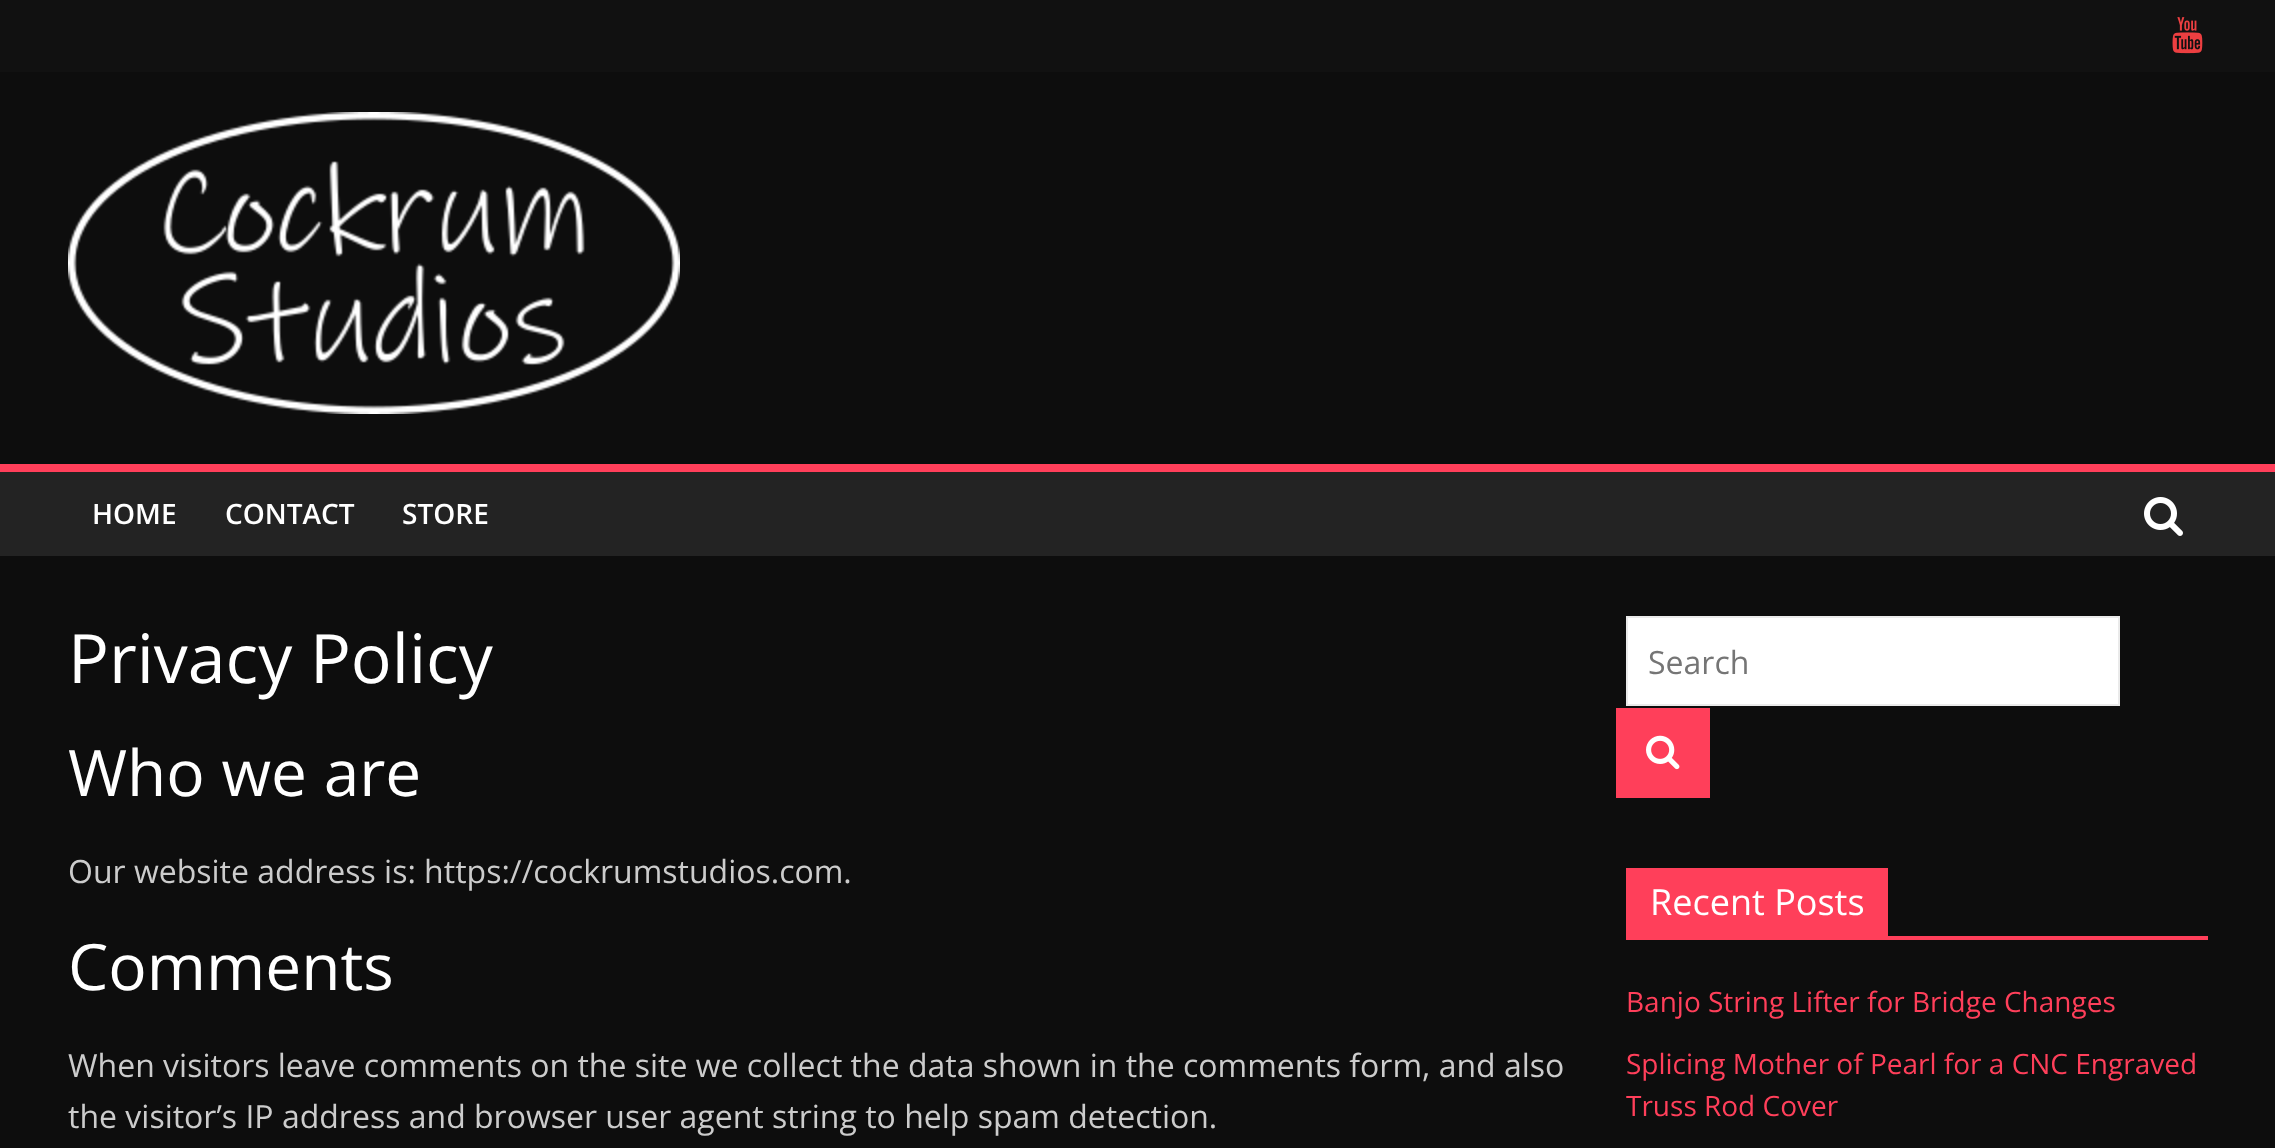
<?xml version="1.0" encoding="UTF-8"?>
<svg xmlns="http://www.w3.org/2000/svg" width="2275" height="1148">
    <rect width="100%" height="100%" fill="#0D0D0D"/>
    <rect x="0" y="0" width="2275" height="72" fill="#111111"/>
    <image x="2172" y="17" width="31" height="37" href="img_01.png"/>
    <image x="68" y="112" width="612" height="302" href="img_02.png"/>
    <rect x="0" y="472" width="2275" height="84" fill="#232323"/>
    <rect x="0" y="464" width="2275" height="8" fill="#FF3F5A"/>
    <text x="92" y="524" font-family="Open Sans" font-size="28" font-weight="600" fill="#FFFFFF">HOME</text>
    <text x="225" y="524" font-family="Open Sans" font-size="28" font-weight="600" fill="#FFFFFF">CONTACT</text>
    <text x="402" y="524" font-family="Open Sans" font-size="28" font-weight="600" fill="#FFFFFF">STORE</text>
    <image x="2144" y="497" width="39" height="39" href="img_03.png"/>
    <text x="68" y="683" font-family="Open Sans" font-size="68" fill="#FFFFFF">Privacy Policy</text>
    <text x="68" y="796" font-family="Open Sans" font-size="64" fill="#FFFFFF">Who we are</text>
    <text x="68" y="883" font-family="Open Sans" font-size="32" fill="#CCCCCC">Our website address is: https://cockrumstudios.com.</text>
    <text x="68" y="990" font-family="Open Sans" font-size="64" fill="#FFFFFF">Comments</text>
    <text font-family="Open Sans" font-size="32" fill="#CCCCCC">
        <tspan x="68" y="1077">When visitors leave comments on the site we collect the data shown in the comments form, and also</tspan>
        <tspan x="68" y="1128">the visitor’s IP address and browser user agent string to help spam detection.</tspan>
    </text>
    <rect x="1627" y="617" width="492" height="88" fill="#FFFFFF" stroke="#EAEAEA" stroke-width="2"/>
    <text x="1648" y="674" font-family="Open Sans" font-size="32" fill="#757575">Search</text>
    <rect x="1616" y="708" width="94" height="90" fill="#FF3F5A"/>
    <image x="1646" y="735" width="34" height="35" href="img_04.png"/>
    <rect x="1626" y="936" width="582" height="4" fill="#FF3F5A"/>
    <rect x="1626" y="868" width="262" height="68" fill="#FF3F5A"/>
    <text x="1650" y="915" font-family="Open Sans" font-size="36" fill="#FFFFFF">Recent Posts</text>
    <text x="1626" y="1012" font-family="Open Sans" font-size="28" fill="#FF3F5A">Banjo String Lifter for Bridge Changes</text>
    <text font-family="Open Sans" font-size="28" fill="#FF3F5A">
        <tspan x="1626" y="1074">Splicing Mother of Pearl for a CNC Engraved</tspan>
        <tspan x="1626" y="1116">Truss Rod Cover</tspan>
    </text>
</svg>
